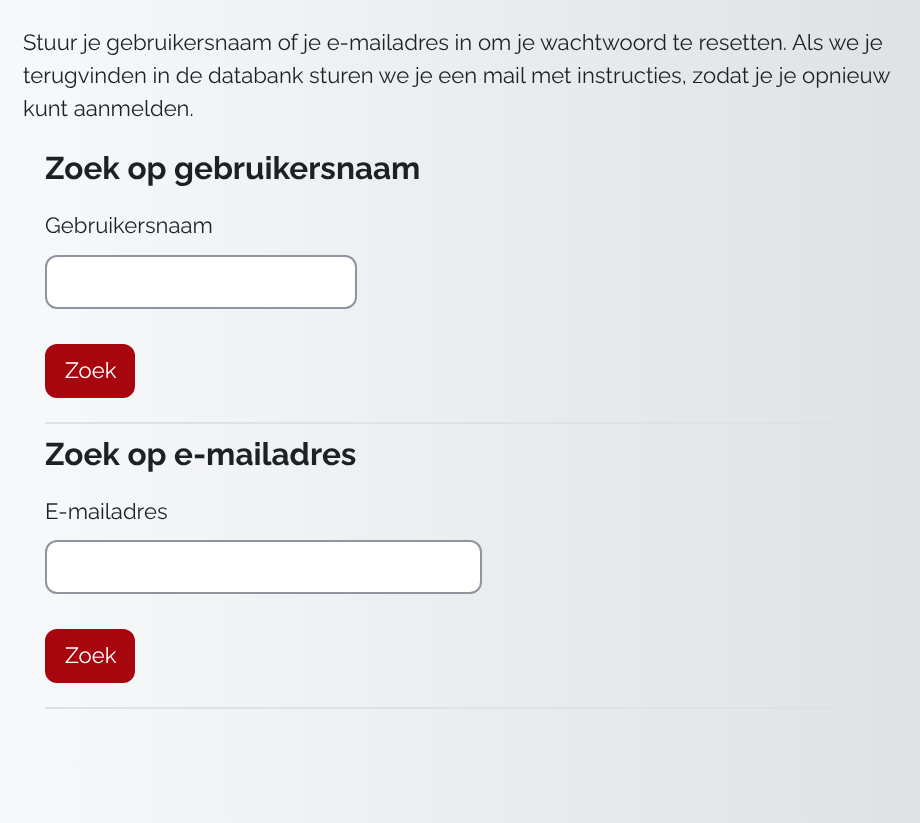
<?xml version="1.0" encoding="UTF-8"?>
<svg xmlns="http://www.w3.org/2000/svg" width="920" height="823">
    <defs>
        <linearGradient id="g1" gradientUnits="userSpaceOnUse" x1="0" y1="412" x2="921" y2="412"><stop offset="0" stop-color="#F8F9FA"/><stop offset="1" stop-color="#DEE2E6"/></linearGradient>
    </defs>
    <rect width="100%" height="100%" fill="#FFFFFF"/>
    <rect x="0" y="0" width="920" height="823" fill="url(#g1)"/>
    <text font-family="Raleway" font-size="22.1" fill="#1D2125">
        <tspan x="23" y="50">Stuur je gebruikersnaam of je e-mailadres in om je wachtwoord te resetten. Als we je</tspan>
        <tspan x="23" y="83">terugvinden in de databank sturen we je een mail met instructies, zodat je je opnieuw</tspan>
        <tspan x="23" y="116">kunt aanmelden.</tspan>
    </text>
    <rect x="45" y="422" width="787" height="2" fill="#DEE2E6"/>
    <text x="45" y="179" font-family="Raleway" font-size="31.5" font-weight="700" fill="#1D2125">Zoek op gebruikersnaam</text>
    <text x="45" y="233" font-family="Raleway" font-size="22.1" fill="#1D2125">Gebruikersnaam</text>
    <rect x="46" y="256" width="310" height="52" rx="11" fill="#FFFFFF" stroke="#8F959E" stroke-width="2"/>
    <rect x="46" y="345" width="88" height="52" rx="11" fill="#A7060E" stroke="#A7060E" stroke-width="2"/>
    <text x="65" y="378" font-family="Raleway" font-size="22.1" fill="#FFFFFF">Zoek</text>
    <rect x="45" y="707" width="787" height="2" fill="#DEE2E6"/>
    <text x="45" y="465" font-family="Raleway" font-size="31.5" font-weight="700" fill="#1D2125">Zoek op e-mailadres</text>
    <text x="45" y="519" font-family="Raleway" font-size="22.1" fill="#1D2125">E-mailadres</text>
    <rect x="46" y="541" width="435" height="52" rx="11" fill="#FFFFFF" stroke="#8F959E" stroke-width="2"/>
    <rect x="46" y="630" width="88" height="52" rx="11" fill="#A7060E" stroke="#A7060E" stroke-width="2"/>
    <text x="65" y="663" font-family="Raleway" font-size="22.1" fill="#FFFFFF">Zoek</text>
</svg>
